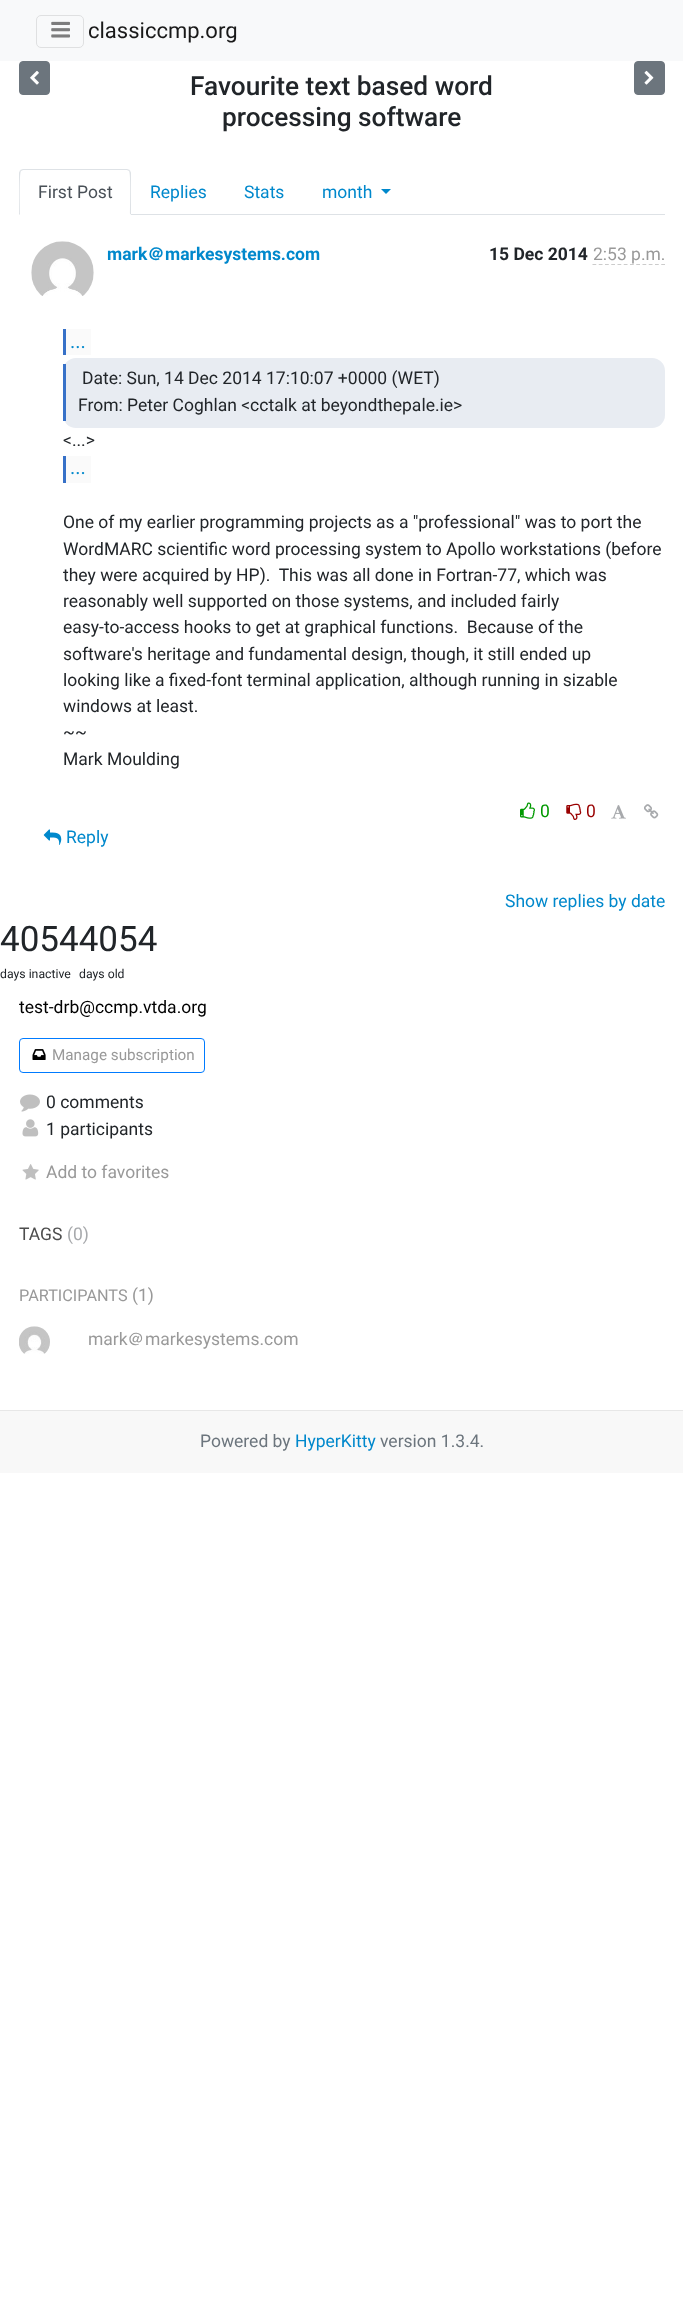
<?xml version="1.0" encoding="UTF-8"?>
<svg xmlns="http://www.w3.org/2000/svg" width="683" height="2324">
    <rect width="100%" height="100%" fill="#FFFFFF"/>
    <rect x="0" y="0" width="683" height="61" fill="#F8F9FA"/>
    <rect x="36.5" y="15.5" width="47" height="32" rx="4.5" fill="none" stroke="#DFE0E1"/>
    <image x="51" y="21" width="19" height="17" href="img_01.png"/>
    <text x="88" y="38" font-family="Roboto" font-size="22" fill="#191919">classiccmp.org</text>
    <rect x="19.5" y="61.5" width="30" height="33" rx="3.5" fill="#6C757D" stroke="#6C757D"/>
    <image x="30" y="70" width="9" height="15" href="img_02.png"/>
    <text x="190" y="95" font-family="Roboto" font-size="26.25" font-weight="500" fill="#212529">Favourite text based word</text>
    <text x="222" y="126" font-family="Roboto" font-size="26.25" font-weight="500" fill="#212529">processing software</text>
    <rect x="634.5" y="61.5" width="30" height="33" rx="3.5" fill="#6C757D" stroke="#6C757D"/>
    <image x="644" y="70" width="10" height="15" href="img_03.png"/>
    <rect x="131" y="214" width="534" height="1" fill="#DEE2E6"/>
    <path d="M 23 169 L 20 170 L 21 171 L 23 170 H 127 L 129 171 L 130 170 L 127 169 Z" fill="#DEE2E6"/>
    <path d="M 131 215 V 173 C 131 172 130 171 130 170 L 129 171 C 131 173 130 209 130 214 Z" fill="#DEE2E6"/>
    <path d="M 19 215 H 131 L 130 214 H 20 Z" fill="#FFFFFF"/>
    <path d="M 20 170 C 20 171 19 172 19 173 V 215 L 20 214 C 20 209 19 173 21 171 Z" fill="#DEE2E6"/>
    <text x="38" y="198" font-family="Roboto" font-size="17.5" fill="#495057">First Post</text>
    <text x="150" y="198" font-family="Roboto" font-size="17.5" fill="#0088CC">Replies</text>
    <text x="244" y="198" font-family="Roboto" font-size="17.5" fill="#0088CC">Stats</text>
    <text x="322" y="198" font-family="Roboto" font-size="17.5" fill="#0088CC">month</text>
    <path d="M 381 189 H 391 L 386 194 Z" fill="#0088CC"/>
    <image x="31" y="241" width="63" height="55" href="img_04.png"/>
    <text x="107" y="260" font-family="Roboto" font-size="17.5" font-weight="700" fill="#0088CC">mark</text>
    <text x="147" y="260" font-family="WenQuanYi Zen Hei" font-size="17.5" font-weight="700" fill="#0088CC">＠</text>
    <text x="165" y="260" font-family="Roboto" font-size="17.5" font-weight="700" fill="#0088CC">markesystems.com</text>
    <text x="489" y="260" font-family="Roboto" font-size="17.5" font-weight="700" fill="#212529">15 Dec 2014</text>
    <path d="M 592.5 264.5 H 665" fill="none" stroke="#CCCCCC" stroke-width="1.2" stroke-dasharray="3.75 2.5"/>
    <text x="593" y="260" font-family="Roboto" font-size="17.5" fill="#999999">2:53 p.m.</text>
    <rect x="66" y="329" width="25" height="26" fill="#FAFAFA"/>
    <text x="70" y="348" font-family="Roboto" font-size="20" fill="#0088CC">...</text>
    <rect x="63" y="329" width="3" height="26" fill="#3771C8"/>
    <rect x="63" y="358" width="602" height="70" rx="13" fill="#E8ECF2"/>
    <rect x="63" y="364" width="3" height="57" fill="#3771C8"/>
    <text x="82" y="384" font-family="Roboto" font-size="17.5" fill="#212529">Date: Sun, 14 Dec 2014 17:10:07 +0000 (WET)</text>
    <text x="78" y="411" font-family="Roboto" font-size="17.5" fill="#212529">From: Peter Coghlan &lt;cctalk at beyondthepale.ie&gt;</text>
    <text x="63" y="446" font-family="Roboto" font-size="17.5" fill="#212529">&lt;...&gt;</text>
    <rect x="66" y="456" width="25" height="27" fill="#FAFAFA"/>
    <text x="70" y="474" font-family="Roboto" font-size="20" fill="#0088CC">...</text>
    <rect x="63" y="456" width="3" height="27" fill="#3771C8"/>
    <text font-family="Roboto" font-size="17.5" fill="#212529" xml:space="preserve"><tspan x="63" y="528">One of my earlier programming projects as a "professional" was to port the</tspan><tspan x="63" y="555">WordMARC scientific word processing system to Apollo workstations (before</tspan><tspan x="63" y="581">they were acquired by HP).  This was all done in Fortran-77, which was</tspan><tspan x="63" y="607">reasonably well supported on those systems, and included fairly</tspan><tspan x="63" y="633">easy-to-access hooks to get at graphical functions.  Because of the</tspan><tspan x="63" y="660">software's heritage and fundamental design, though, it still ended up</tspan><tspan x="63" y="686">looking like a fixed-font terminal application, although running in sizable</tspan><tspan x="63" y="712">windows at least.</tspan><tspan x="63" y="738">~~</tspan><tspan x="63" y="765">Mark Moulding</tspan></text>
    <image x="520" y="802" width="15" height="17" href="img_05.png"/>
    <text x="540" y="817" font-family="Roboto" font-size="17.5" fill="#009900">0</text>
    <image x="566" y="803" width="16" height="17" href="img_06.png"/>
    <text x="586" y="817" font-family="Roboto" font-size="17.5" fill="#990000">0</text>
    <image x="611" y="805" width="15" height="14" href="img_07.png"/>
    <image x="644" y="804" width="15" height="15" href="img_08.png"/>
    <image x="43" y="829" width="19" height="16" href="img_09.png"/>
    <text x="66" y="843" font-family="Roboto" font-size="17.5" fill="#0088CC">Reply</text>
    <text x="505" y="907" font-family="Roboto" font-size="17.5" fill="#0088CC">Show replies by date</text>
    <text x="0" y="951" font-family="Roboto" font-size="35" fill="#212529">40544054</text>
    <text x="0" y="978" font-family="Roboto" font-size="12.25" fill="#212529">days inactive</text>
    <text x="79" y="978" font-family="Roboto" font-size="12.25" fill="#212529">days old</text>
    <text x="19" y="1013" font-family="Roboto" font-size="17.5" fill="#000000">test-drb@ccmp.vtda.org</text>
    <rect x="19.5" y="1038.5" width="185" height="34" rx="3.5" fill="none" stroke="#007BFF"/>
    <image x="32" y="1049" width="14" height="11" href="img_10.png"/>
    <text x="52" y="1060" font-family="Roboto" font-size="15.25" fill="#999999">Manage subscription</text>
    <image x="20" y="1094" width="20" height="18" href="img_11.png"/>
    <text x="46" y="1108" font-family="Roboto" font-size="17.5" fill="#212529">0 comments</text>
    <image x="22" y="1119" width="17" height="18" href="img_12.png"/>
    <text x="46" y="1135" font-family="Roboto" font-size="17.5" fill="#212529">1 participants</text>
    <image x="22" y="1164" width="17" height="16" href="img_13.png"/>
    <text x="46" y="1178" font-family="Roboto" font-size="17.5" fill="#999999">Add to favorites</text>
    <text x="19" y="1240" font-family="Roboto" font-size="17.5" fill="#4D4D4D">TAGS</text>
    <text x="67" y="1240" font-family="Roboto" font-size="17.5" fill="#A7A9AC">(0)</text>
    <text x="19" y="1301" font-family="Roboto" font-size="16.25" fill="#999999">PARTICIPANTS</text>
    <text x="132" y="1301" font-family="Roboto" font-size="17.5" fill="#999999">(1)</text>
    <image x="19" y="1326" width="31" height="28" href="img_14.png"/>
    <text x="88" y="1345" font-family="Roboto" font-size="17.5" fill="#999999">mark</text>
    <text x="127" y="1345" font-family="WenQuanYi Zen Hei" font-size="17.5" font-weight="500" fill="#999999">＠</text>
    <text x="145" y="1345" font-family="Roboto" font-size="17.5" fill="#999999">markesystems.com</text>
    <rect x="0" y="1411" width="683" height="62" fill="#F8F8F8"/>
    <rect x="0" y="1410" width="683" height="1" fill="#E7E7E7"/>
    <text x="200" y="1447" font-family="Roboto" font-size="17.5" fill="#6C757D">Powered by</text>
    <text x="295" y="1447" font-family="Roboto" font-size="17.5" fill="#0088CC">HyperKitty</text>
    <text x="380" y="1447" font-family="Roboto" font-size="17.5" fill="#6C757D">version 1.3.4.</text>
</svg>
